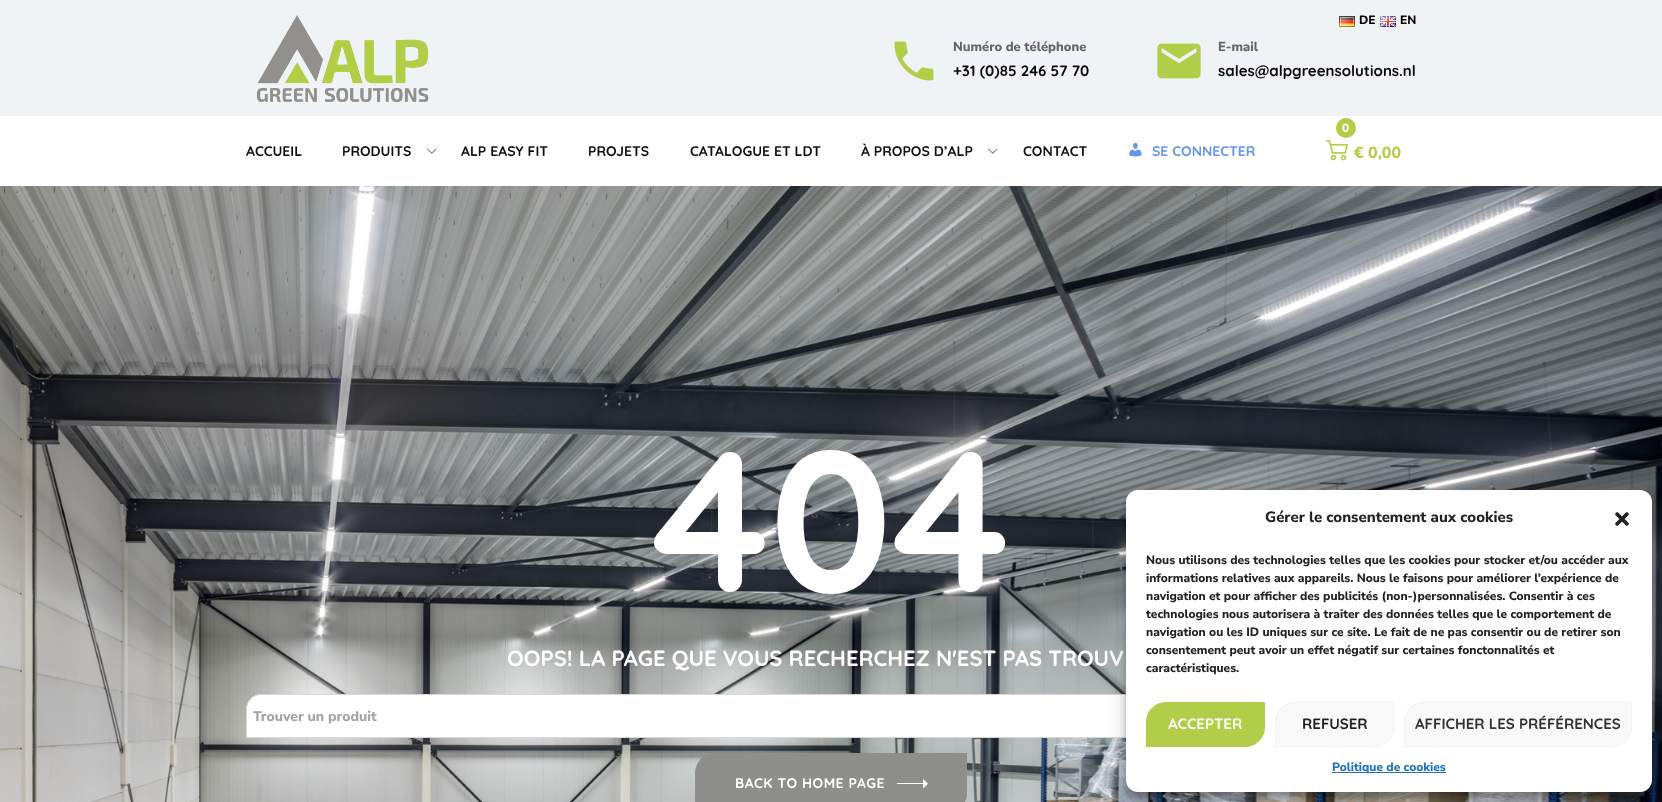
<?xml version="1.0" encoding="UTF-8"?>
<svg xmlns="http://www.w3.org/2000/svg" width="1662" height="802">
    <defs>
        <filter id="blur1" x="-50%" y="-200%" width="200%" height="500%"><feGaussianBlur stdDeviation="3"/></filter>
        <filter id="blur2" x="-50%" y="-200%" width="200%" height="500%"><feGaussianBlur stdDeviation="10"/></filter>
    </defs>
    <rect width="100%" height="100%" fill="#EFF3F5"/>
    <image x="1339" y="16" width="16" height="11" href="img_01.png"/>
    <text x="1359" y="24" font-family="Nunito Sans" font-size="12" font-weight="800" fill="#000000">DE</text>
    <image x="1380" y="16" width="16" height="11" href="img_02.png"/>
    <text x="1400" y="24" font-family="Nunito Sans" font-size="12" font-weight="800" fill="#000000">EN</text>
    <image x="256" y="15" width="173" height="87" href="img_03.png"/>
    <image x="894" y="41" width="40" height="40" href="img_04.png"/>
    <text x="953" y="51" font-family="Nunito Sans" font-size="13" font-weight="800" fill="#60626D">Numéro de téléphone</text>
    <text x="953" y="76" font-family="Quicksand" font-size="15" font-weight="700" fill="#0A0909">+31 (0)85 246 57 70</text>
    <image x="1157" y="43" width="44" height="36" href="img_05.png"/>
    <text x="1218" y="51" font-family="Nunito Sans" font-size="13" font-weight="800" fill="#60626D">E-mail</text>
    <text x="1218" y="76" font-family="Quicksand" font-size="15" font-weight="700" fill="#0A0909">sales@alpgreensolutions.nl</text>
    <rect x="0" y="116" width="1662" height="70" fill="#FFFFFF"/>
    <text x="246" y="156" font-family="Quicksand" font-size="14" font-weight="700" fill="#101010">ACCUEIL</text>
    <text x="342" y="156" font-family="Quicksand" font-size="14" font-weight="700" fill="#101010">PRODUITS</text>
    <image x="427" y="148" width="10" height="6" href="img_06.png"/>
    <text x="461" y="156" font-family="Quicksand" font-size="14" font-weight="700" fill="#101010">ALP EASY FIT</text>
    <text x="588" y="156" font-family="Quicksand" font-size="14" font-weight="700" fill="#101010">PROJETS</text>
    <text x="690" y="156" font-family="Quicksand" font-size="14" font-weight="700" fill="#101010">CATALOGUE ET LDT</text>
    <text x="861" y="156" font-family="Quicksand" font-size="14" font-weight="700" fill="#101010">À PROPOS D’ALP</text>
    <image x="988" y="148" width="10" height="6" href="img_06.png"/>
    <text x="1023" y="156" font-family="Quicksand" font-size="14" font-weight="700" fill="#101010">CONTACT</text>
    <image x="1129" y="142" width="13" height="15" href="img_07.png"/>
    <text x="1152" y="156" font-family="Quicksand" font-size="14" font-weight="700" fill="#6495ED">SE CONNECTER</text>
    <circle cx="1346" cy="128" r="10" fill="#B2CD47"/>
    <text x="1342" y="132" font-family="Nunito Sans" font-size="12" font-weight="800" fill="#FFFFFF">0</text>
    <image x="1326" y="140" width="22" height="21" href="img_08.png"/>
    <text x="1354" y="158" font-family="Nunito Sans" font-size="16" font-weight="800" fill="#B2CD47">€ 0,00</text>
    <image x="0" y="186" width="1662" height="616" href="img_09.png"/>
    <text x="652" y="592" font-family="Quicksand" font-size="200" font-weight="700" fill="#FFFFFF">404</text>
    <text x="507" y="666" font-family="Quicksand" font-size="22" font-weight="700" fill="#FFFFFF">OOPS! LA PAGE QUE VOUS RECHERCHEZ N'EST PAS TROUV</text>
    <path d="M 261 694.5 H 1374.5 V 737.5 H 246.5 V 709 C 246.5 701 253 694.5 261 694.5 Z" fill="#FFFFFF" stroke="#D8D8D8"/>
    <text x="253" y="721" font-family="Nunito Sans" font-size="14" font-weight="800" fill="#A4A4A4">Trouver un produit</text>
    <path d="M 715 753 H 967 V 793 C 967 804 958 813 947 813 H 695 V 773 C 695 762 704 753 715 753 Z" fill="#8E8F8C"/>
    <text x="735" y="788" font-family="Quicksand" font-size="14" font-weight="700" letter-spacing="0.5" fill="#FFFFFF">BACK TO HOME PAGE</text>
    <rect x="897" y="783" width="30" height="1" fill="#FFFFFF"/>
    <image x="923" y="779" width="5" height="9" href="img_10.png"/>
    <rect x="1126" y="496" width="526" height="302" rx="12" fill="#000000" fill-opacity="0.23" filter="url(#blur1)"/>
    <rect x="1126" y="500" width="526" height="302" rx="12" fill="#000000" fill-opacity="0.19" filter="url(#blur2)"/>
    <rect x="1126" y="490" width="526" height="302" rx="12" fill="#FFFFFF"/>
    <text x="1265" y="522" font-family="Nunito Sans" font-size="15" font-weight="800" fill="#222222">Gérer le consentement aux cookies</text>
    <image x="1615" y="512" width="14" height="14" href="img_11.png"/>
    <text font-family="Nunito Sans" font-size="12" font-weight="800" fill="#222222">
        <tspan x="1146" y="564">Nous utilisons des technologies telles que les cookies pour stocker et/ou accéder aux</tspan>
        <tspan x="1146" y="582">informations relatives aux appareils. Nous le faisons pour améliorer l’expérience de</tspan>
        <tspan x="1146" y="600">navigation et pour afficher des publicités (non-)personnalisées. Consentir à ces</tspan>
        <tspan x="1146" y="618">technologies nous autorisera à traiter des données telles que le comportement de</tspan>
        <tspan x="1146" y="636">navigation ou les ID uniques sur ce site. Le fait de ne pas consentir ou de retirer son</tspan>
        <tspan x="1146" y="654">consentement peut avoir un effet négatif sur certaines fonctonnalités et</tspan>
        <tspan x="1146" y="672">caractéristiques.</tspan>
    </text>
    <path d="M 1166 702.5 H 1264.5 V 727 C 1264.5 738 1256 746.5 1245 746.5 H 1146.5 V 722 C 1146.5 711 1155 702.5 1166 702.5 Z" fill="#B2CD47" stroke="#B2CD47"/>
    <text x="1168" y="729" font-family="Quicksand" font-size="15" font-weight="700" fill="#FFFFFF">ACCEPTER</text>
    <path d="M 1295 702.5 H 1393.5 V 727 C 1393.5 738 1385 746.5 1374 746.5 H 1275.5 V 722 C 1275.5 711 1284 702.5 1295 702.5 Z" fill="#F9F9F9" stroke="#F2F2F2"/>
    <text x="1302" y="729" font-family="Quicksand" font-size="15" font-weight="700" fill="#222222">REFUSER</text>
    <path d="M 1424 702.5 H 1631.5 V 727 C 1631.5 738 1623 746.5 1612 746.5 H 1404.5 V 722 C 1404.5 711 1413 702.5 1424 702.5 Z" fill="#F9F9F9" stroke="#F2F2F2"/>
    <text x="1415" y="729" font-family="Quicksand" font-size="15" font-weight="700" fill="#333333">AFFICHER LES PRÉFÉRENCES</text>
    <rect x="1332" y="772" width="114" height="1" fill="#1E73BE"/>
    <text x="1332" y="771" font-family="Nunito Sans" font-size="12" font-weight="800" fill="#1E73BE">Politique de cookies</text>
</svg>
